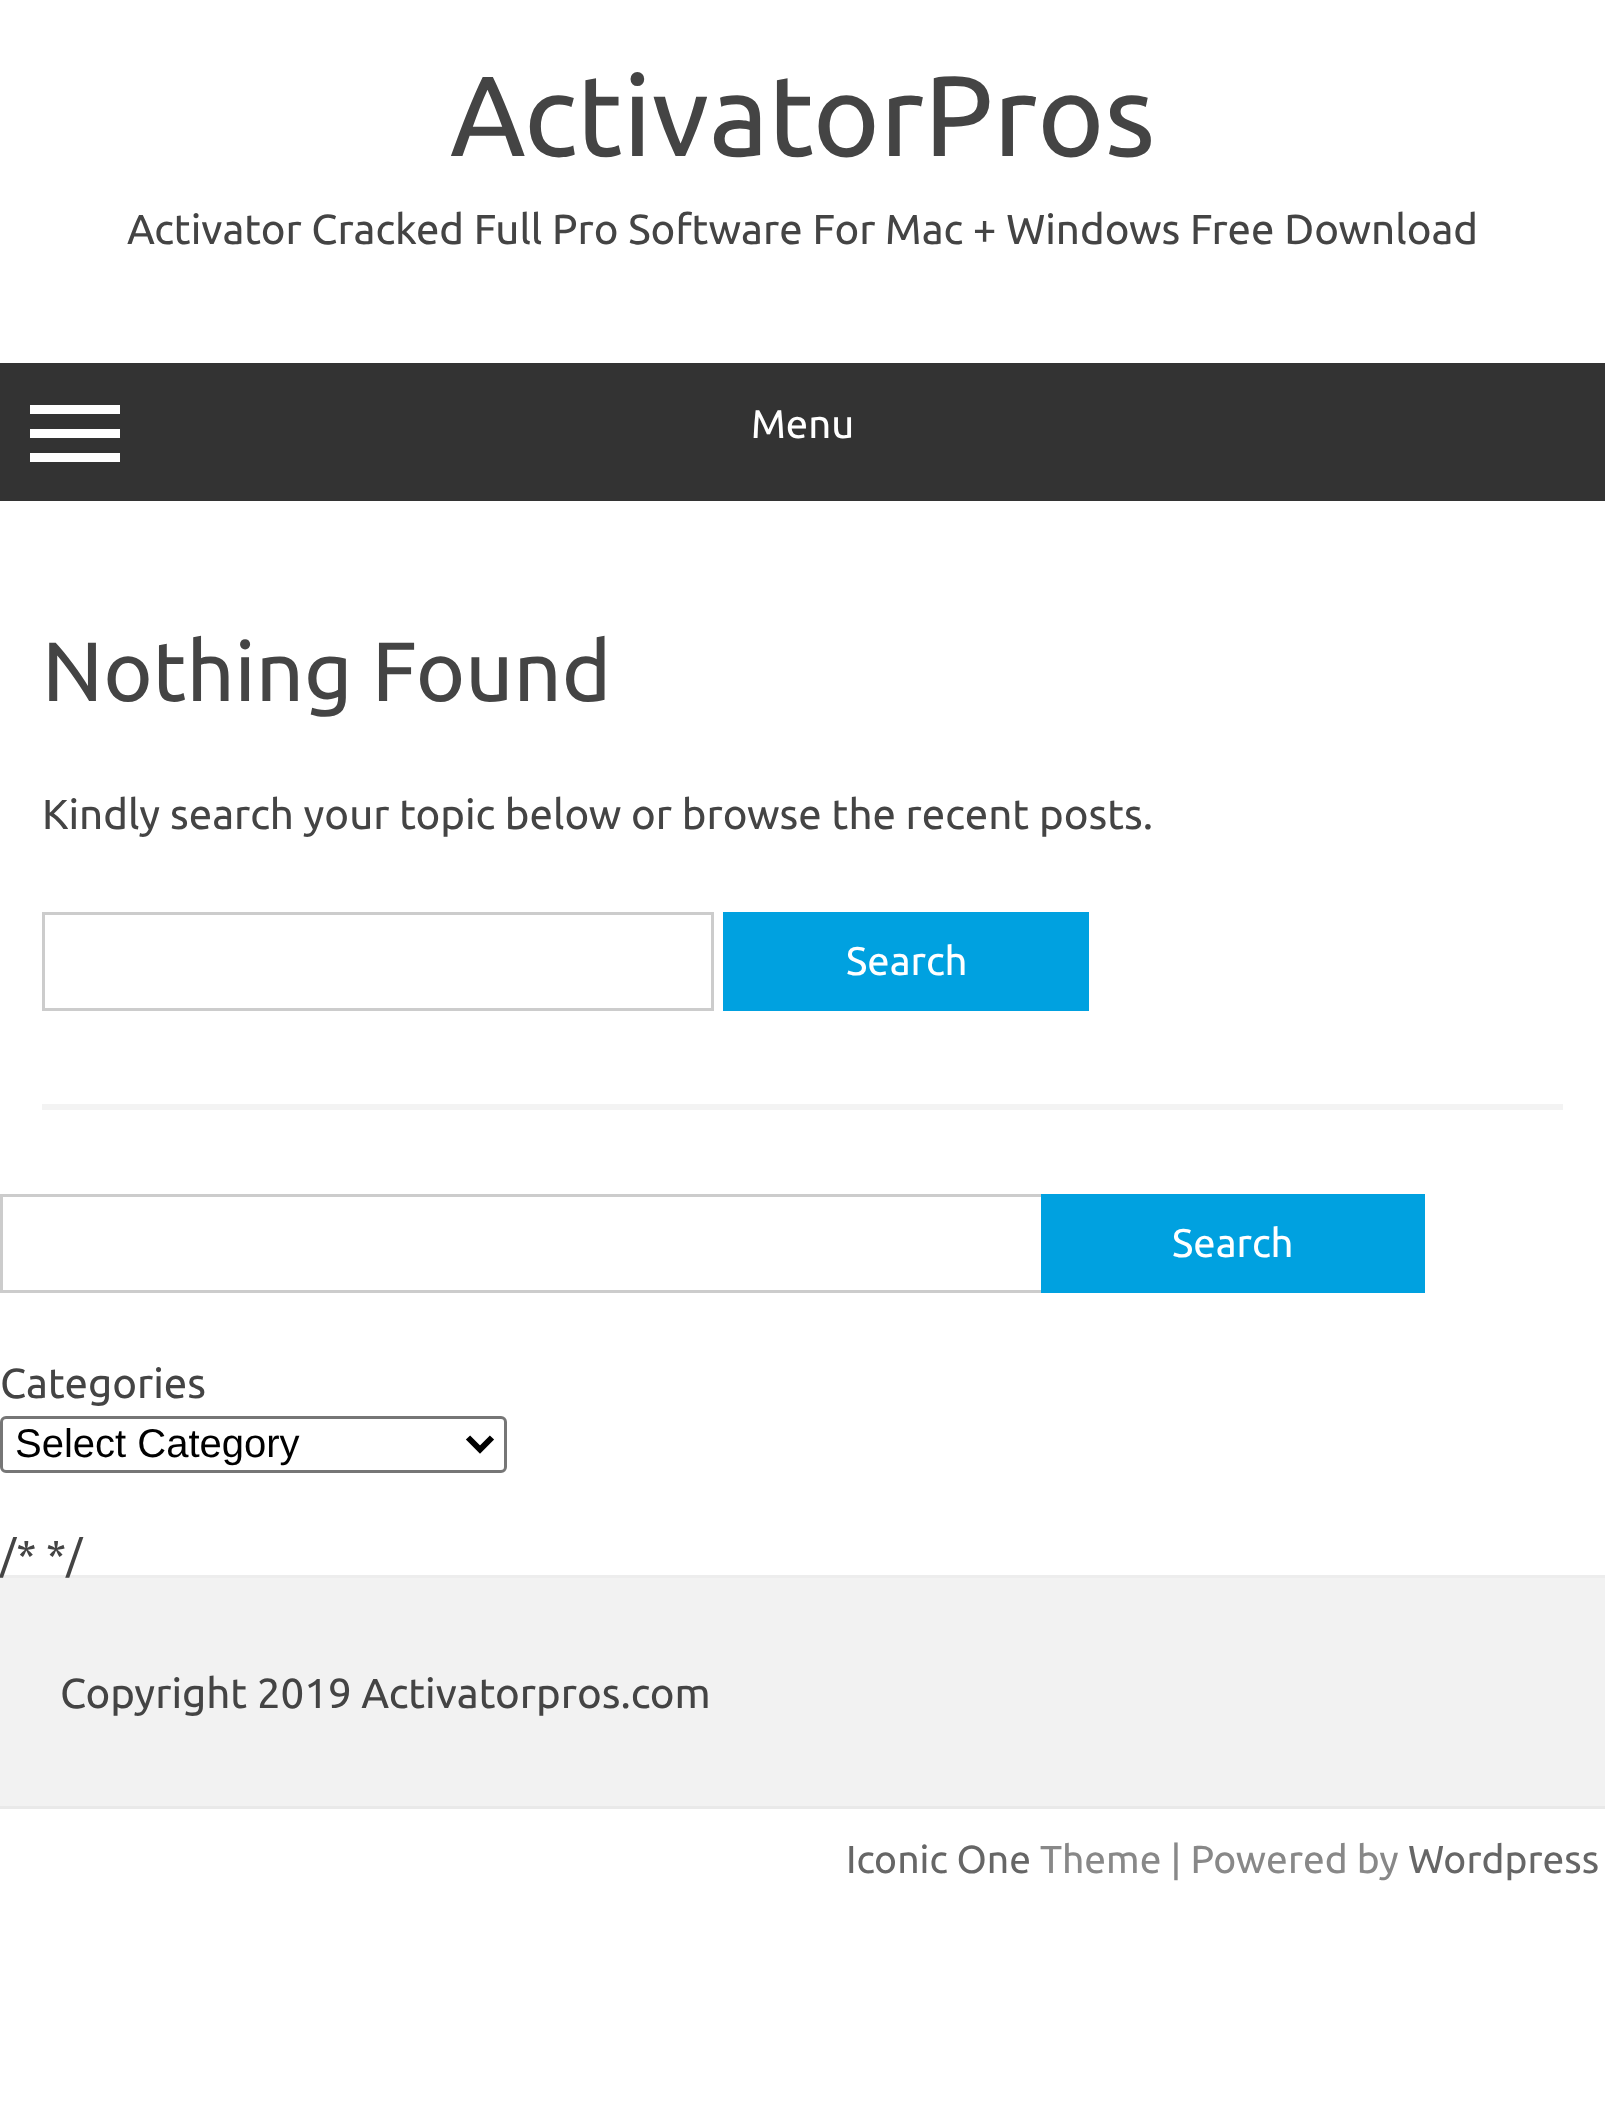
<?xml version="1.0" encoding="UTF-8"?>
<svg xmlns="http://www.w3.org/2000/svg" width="1605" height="2121">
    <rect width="100%" height="100%" fill="#FFFFFF"/>
    <text x="450" y="156" font-family="Ubuntu" font-size="114" fill="#444444">ActivatorPros</text>
    <text x="127" y="244" font-family="Ubuntu" font-size="42" fill="#444444">Activator Cracked Full Pro Software For Mac + Windows Free Download</text>
    <rect x="0" y="363" width="1605" height="138" fill="#333333"/>
    <rect x="30" y="405" width="90" height="9" fill="#FFFFFF"/>
    <rect x="30" y="429" width="90" height="9" fill="#FFFFFF"/>
    <rect x="30" y="453" width="90" height="9" fill="#FFFFFF"/>
    <text x="751" y="438" font-family="Ubuntu" font-size="40" fill="#FFFFFF">Menu</text>
    <rect x="42" y="1104" width="1521" height="6" fill="#F3F3F3"/>
    <text x="42" y="701" font-family="Ubuntu" font-size="84" fill="#444444">Nothing Found</text>
    <text x="42" y="829" font-family="Ubuntu" font-size="42" fill="#444444">Kindly search your topic below or browse the recent posts.</text>
    <rect x="43.5" y="913.5" width="669" height="96" fill="none" stroke="#CCCCCC" stroke-width="3"/>
    <rect x="723" y="912" width="366" height="99" fill="#00A1E0"/>
    <text x="846" y="975" font-family="Ubuntu" font-size="40" fill="#FFFFFF">Search</text>
    <rect x="1.5" y="1195.5" width="1041" height="96" fill="none" stroke="#CCCCCC" stroke-width="3"/>
    <rect x="1041" y="1194" width="384" height="99" fill="#00A1E0"/>
    <text x="1172" y="1257" font-family="Ubuntu" font-size="40" fill="#FFFFFF">Search</text>
    <text x="0" y="1398" font-family="Ubuntu" font-size="42" fill="#444444">Categories</text>
    <rect x="1.5" y="1417.5" width="504" height="54" rx="4.5" fill="none" stroke="#767676" stroke-width="3"/>
    <path d="M 468 1437.5 L 480 1449.5 L 492 1437.5" fill="none" stroke="#000000" stroke-width="6"/>
    <text x="15" y="1457" font-family="Liberation Sans" font-size="40" fill="#000000">Select Category</text>
    <rect x="0" y="1575" width="1605" height="3" fill="#EDEDED"/>
    <text x="0" y="1570" font-family="Ubuntu" font-size="42" fill="#444444">/* */</text>
    <rect x="0" y="1578" width="1605" height="228" fill="#F2F2F2"/>
    <rect x="0" y="1806" width="1605" height="3" fill="#E9E9E9"/>
    <text x="60" y="1708" font-family="Ubuntu" font-size="42" fill="#444444">Copyright 2019 Activatorpros.com</text>
    <text x="846" y="1873" font-family="Ubuntu" font-size="39" fill="#666666">Iconic One</text>
    <text x="1040" y="1873" font-family="Ubuntu" font-size="39" fill="#888888">Theme | Powered by</text>
    <text x="1408" y="1873" font-family="Ubuntu" font-size="39" fill="#666666">Wordpress</text>
</svg>
